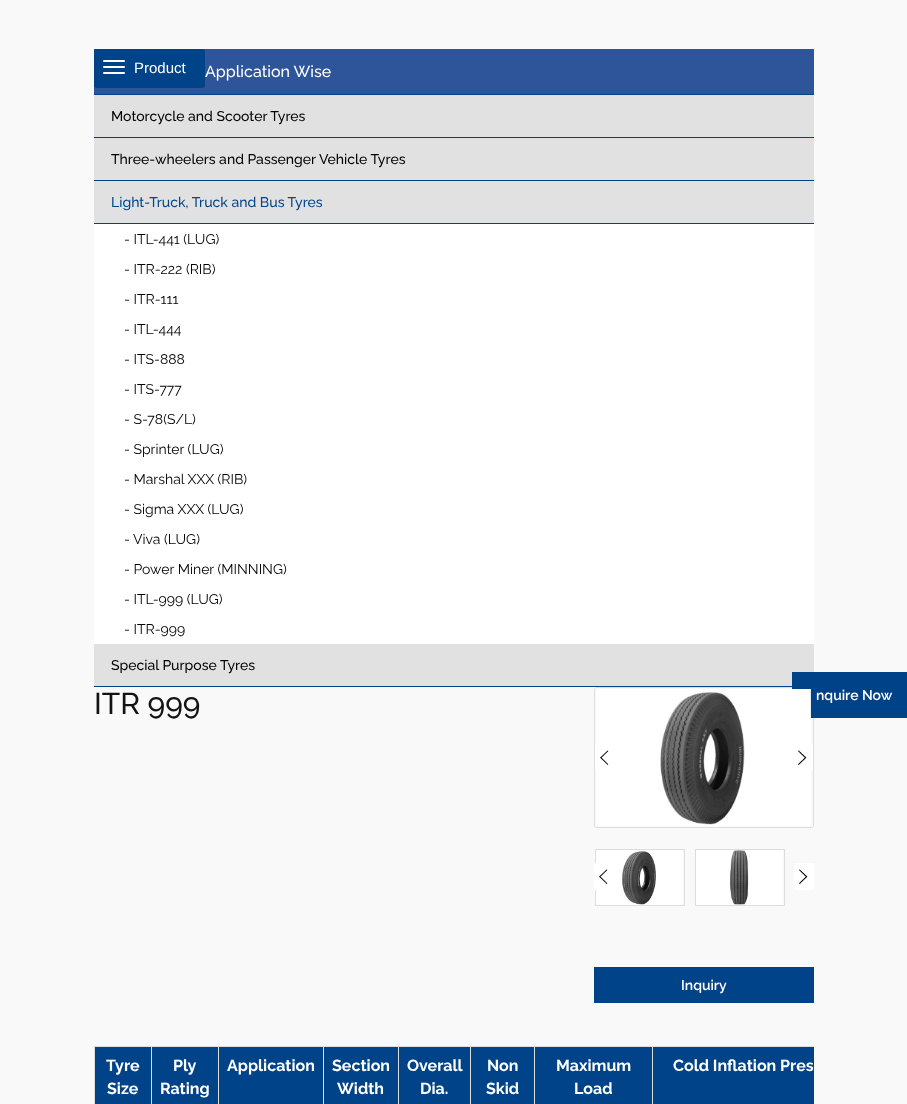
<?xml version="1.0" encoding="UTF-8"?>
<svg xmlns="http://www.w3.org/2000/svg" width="907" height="1104">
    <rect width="100%" height="100%" fill="#F9F9F9"/>
    <rect x="94" y="49" width="720" height="45" fill="#2E559A"/>
    <rect x="94" y="49" width="111" height="39" rx="3" fill="#004388"/>
    <rect x="103" y="60" width="22" height="2" rx="1" fill="#FFFFFF"/>
    <rect x="103" y="66" width="22" height="2" rx="1" fill="#FFFFFF"/>
    <rect x="103" y="72" width="22" height="2" rx="1" fill="#FFFFFF"/>
    <text x="134" y="73" font-family="Liberation Sans" font-size="15" fill="#FFFFFF">Product</text>
    <rect x="94" y="94" width="720" height="1" fill="#004388"/>
    <text x="205" y="77" font-family="Raleway" font-size="16" font-weight="500" fill="#FFFFFF">Application Wise</text>
    <rect x="94" y="95" width="720" height="42" fill="#E1E1E1"/>
    <rect x="94" y="137" width="720" height="1" fill="#004388"/>
    <text x="111" y="121" font-family="Raleway" font-size="14" font-weight="500" fill="#000000">Motorcycle and Scooter Tyres</text>
    <rect x="94" y="138" width="720" height="42" fill="#E1E1E1"/>
    <rect x="94" y="180" width="720" height="1" fill="#004388"/>
    <text x="111" y="164" font-family="Raleway" font-size="14" font-weight="500" fill="#000000">Three-wheelers and Passenger Vehicle Tyres</text>
    <rect x="94" y="181" width="720" height="42" fill="#E1E1E1"/>
    <rect x="94" y="223" width="720" height="1" fill="#004388"/>
    <text x="111" y="207" font-family="Raleway" font-size="14" font-weight="500" fill="#00458A">Light-Truck, Truck and Bus Tyres</text>
    <rect x="94" y="224" width="720" height="420" fill="#FFFFFF"/>
    <text x="124" y="244" font-family="Raleway" font-size="14" fill="#000000">- ITL-441 (LUG)</text>
    <text x="124" y="274" font-family="Raleway" font-size="14" fill="#000000">- ITR-222 (RIB)</text>
    <text x="124" y="304" font-family="Raleway" font-size="14" fill="#000000">- ITR-111</text>
    <text x="124" y="334" font-family="Raleway" font-size="14" fill="#000000">- ITL-444</text>
    <text x="124" y="364" font-family="Raleway" font-size="14" fill="#000000">- ITS-888</text>
    <text x="124" y="394" font-family="Raleway" font-size="14" fill="#000000">- ITS-777</text>
    <text x="124" y="424" font-family="Raleway" font-size="14" fill="#000000">- S-78(S/L)</text>
    <text x="124" y="454" font-family="Raleway" font-size="14" fill="#000000">- Sprinter (LUG)</text>
    <text x="124" y="484" font-family="Raleway" font-size="14" fill="#000000">- Marshal XXX (RIB)</text>
    <text x="124" y="514" font-family="Raleway" font-size="14" fill="#000000">- Sigma XXX (LUG)</text>
    <text x="124" y="544" font-family="Raleway" font-size="14" fill="#000000">- Viva (LUG)</text>
    <text x="124" y="574" font-family="Raleway" font-size="14" fill="#000000">- Power Miner (MINNING)</text>
    <text x="124" y="604" font-family="Raleway" font-size="14" fill="#000000">- ITL-999 (LUG)</text>
    <text x="124" y="634" font-family="Raleway" font-size="14" fill="#000000">- ITR-999</text>
    <rect x="94" y="644" width="720" height="42" fill="#E1E1E1"/>
    <rect x="94" y="686" width="698" height="1" fill="#004388"/>
    <text x="111" y="670" font-family="Raleway" font-size="14" font-weight="500" fill="#000000">Special Purpose Tyres</text>
    <text x="94" y="714" font-family="Raleway" font-size="30" font-weight="500" fill="#131313">ITR 999</text>
    <rect x="594.5" y="687.5" width="219" height="140" rx="2.5" fill="none" stroke="#DDDDDD"/>
    <path d="M 597 688 C 596 688 595 689 595 690 V 825 C 595 826 596 827 597 827 H 811 C 812 827 813 826 813 825 V 690 C 813 689 812 688 811 688 Z M 596 689 V 826 H 812 V 689 Z" fill="#F9F9F9" fill-rule="evenodd"/>
    <rect x="792" y="672" width="115" height="46" fill="#004288"/>
    <image x="596" y="689" width="215" height="137" href="img_01.png"/>
    <rect x="595" y="744" width="1" height="27" fill="#FFFFFF"/>
    <image x="600" y="750" width="9" height="15" href="img_02.png"/>
    <rect x="811" y="744" width="2" height="27" fill="#FFFFFF"/>
    <image x="798" y="750" width="9" height="15" href="img_03.png"/>
    <rect x="595.5" y="849.5" width="89" height="56" fill="none" stroke="#DDDDDD"/>
    <image x="596" y="850" width="87" height="55" href="img_04.png"/>
    <rect x="695.5" y="849.5" width="89" height="56" fill="none" stroke="#DDDDDD"/>
    <image x="696" y="850" width="87" height="55" href="img_05.png"/>
    <rect x="594" y="863" width="2" height="27" fill="#FFFFFF"/>
    <image x="599" y="869" width="9" height="15" href="img_02.png"/>
    <rect x="794" y="863" width="20" height="27" fill="#FFFFFF"/>
    <image x="799" y="869" width="9" height="15" href="img_03.png"/>
    <rect x="594" y="967" width="220" height="36" fill="#004388"/>
    <text x="681" y="990" font-family="Raleway" font-size="14" font-weight="600" fill="#FFFFFF">Inquiry</text>
    <rect x="94" y="1046" width="720" height="1" fill="#DDDDDD"/>
    <rect x="94" y="1046" width="1" height="58" fill="#DDDDDD"/>
    <rect x="95" y="1047" width="56" height="57" fill="#004388"/>
    <text x="106" y="1071" font-family="Raleway" font-size="16" font-weight="700" fill="#FFFFFF">Tyre</text>
    <text x="107" y="1094" font-family="Raleway" font-size="16" font-weight="700" fill="#FFFFFF">Size</text>
    <rect x="152" y="1047" width="66" height="57" fill="#004388"/>
    <rect x="151" y="1046" width="1" height="58" fill="#DDDDDD"/>
    <text x="173" y="1071" font-family="Raleway" font-size="16" font-weight="700" fill="#FFFFFF">Ply</text>
    <text x="160" y="1094" font-family="Raleway" font-size="16" font-weight="700" fill="#FFFFFF">Rating</text>
    <rect x="219" y="1047" width="104" height="57" fill="#004388"/>
    <rect x="218" y="1046" width="1" height="58" fill="#DDDDDD"/>
    <text x="227" y="1071" font-family="Raleway" font-size="16" font-weight="700" fill="#FFFFFF">Application</text>
    <rect x="324" y="1047" width="74" height="57" fill="#004388"/>
    <rect x="323" y="1046" width="1" height="58" fill="#DDDDDD"/>
    <text x="332" y="1071" font-family="Raleway" font-size="16" font-weight="700" fill="#FFFFFF">Section</text>
    <text x="337" y="1094" font-family="Raleway" font-size="16" font-weight="700" fill="#FFFFFF">Width</text>
    <rect x="399" y="1047" width="71" height="57" fill="#004388"/>
    <rect x="398" y="1046" width="1" height="58" fill="#DDDDDD"/>
    <text x="407" y="1071" font-family="Raleway" font-size="16" font-weight="700" fill="#FFFFFF">Overall</text>
    <text x="420" y="1094" font-family="Raleway" font-size="16" font-weight="700" fill="#FFFFFF">Dia.</text>
    <rect x="471" y="1047" width="63" height="57" fill="#004388"/>
    <rect x="470" y="1046" width="1" height="58" fill="#DDDDDD"/>
    <text x="487" y="1071" font-family="Raleway" font-size="16" font-weight="700" fill="#FFFFFF">Non</text>
    <text x="486" y="1094" font-family="Raleway" font-size="16" font-weight="700" fill="#FFFFFF">Skid</text>
    <rect x="535" y="1047" width="117" height="57" fill="#004388"/>
    <rect x="534" y="1046" width="1" height="58" fill="#DDDDDD"/>
    <text x="556" y="1071" font-family="Raleway" font-size="16" font-weight="700" fill="#FFFFFF">Maximum</text>
    <text x="574" y="1094" font-family="Raleway" font-size="16" font-weight="700" fill="#FFFFFF">Load</text>
    <rect x="653" y="1047" width="161" height="57" fill="#004388"/>
    <rect x="652" y="1046" width="1" height="58" fill="#DDDDDD"/>
    <text x="673" y="1071" font-family="Raleway" font-size="16" font-weight="700" fill="#FFFFFF">Cold Inflation Pres</text>
    <text x="816" y="700" font-family="Raleway" font-size="14" font-weight="600" fill="#FFFFFF">nquire Now</text>
</svg>
